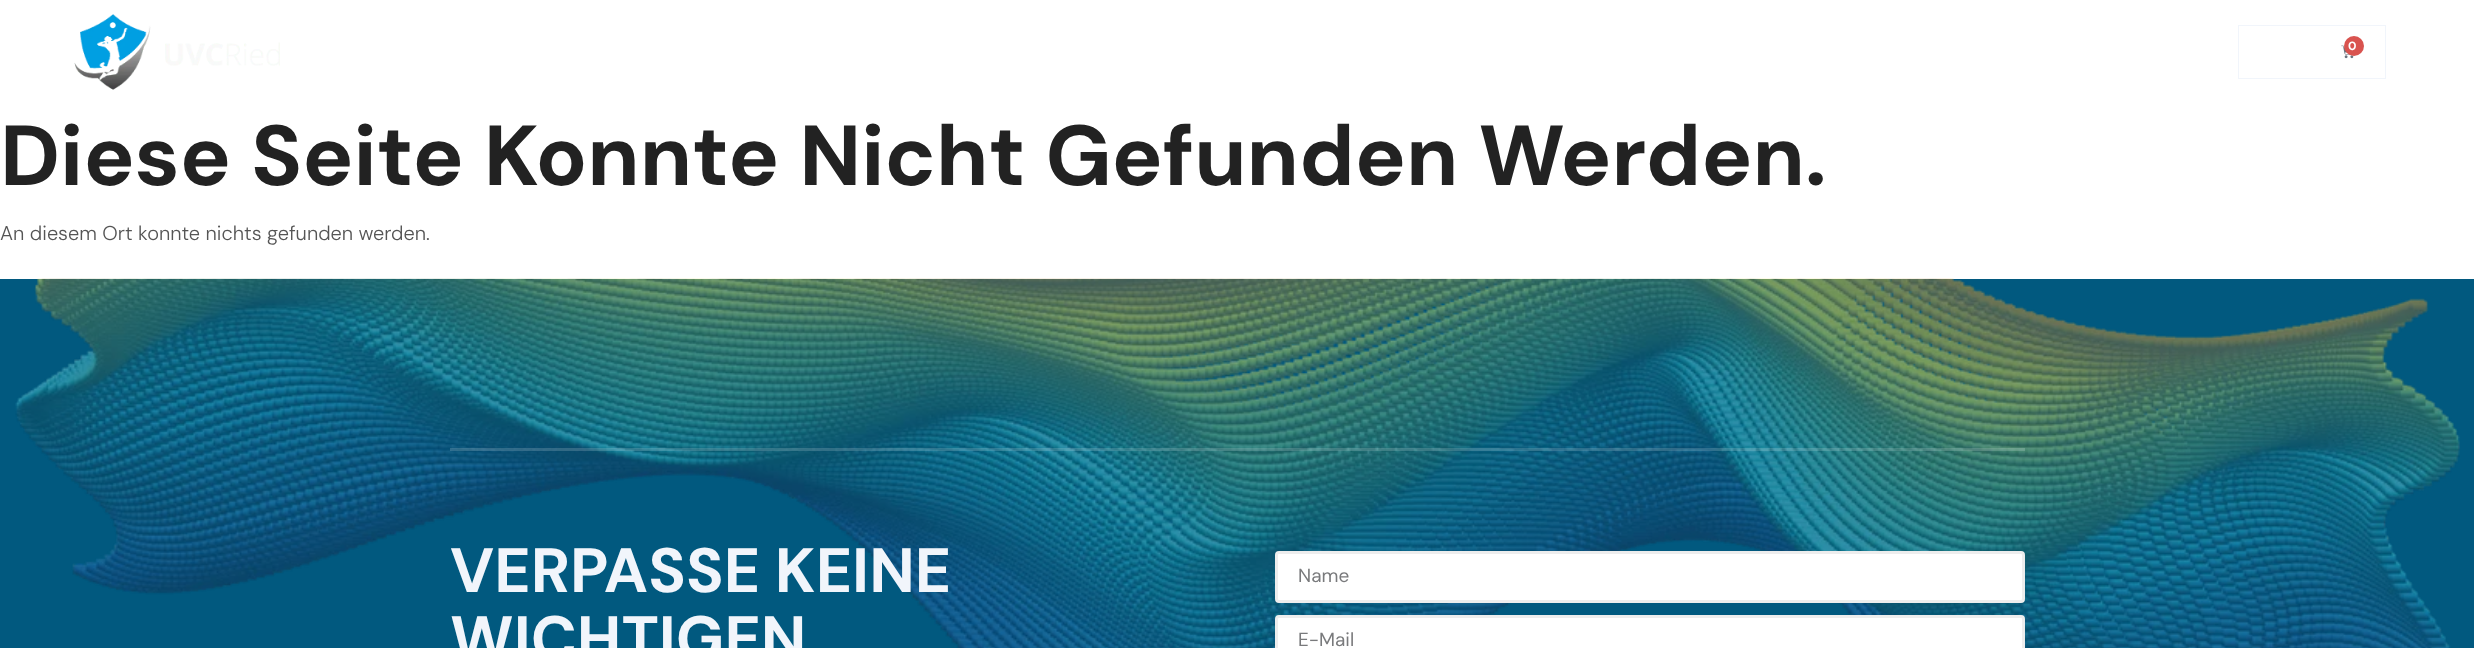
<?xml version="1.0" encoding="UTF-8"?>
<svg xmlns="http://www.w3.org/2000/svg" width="2474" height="648">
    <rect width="100%" height="100%" fill="#FFFFFF"/>
    <image x="74" y="14" width="206" height="76" href="img_01.png"/>
    <rect x="2238.5" y="25.5" width="147" height="53" fill="none" stroke="#F1F5FB"/>
    <image x="2341" y="45" width="13" height="14" href="img_02.png"/>
    <circle cx="2354" cy="46" r="10" fill="#D9534F"/>
    <text x="2348" y="50" font-family="DM Sans" font-size="12" font-weight="700" letter-spacing="4" fill="#FFFFFF">0</text>
    <text x="0" y="185" font-family="DM Sans" font-size="85" font-weight="700" fill="#222222">Diese Seite Konnte Nicht Gefunden Werden.</text>
    <text x="0" y="240" font-family="DM Sans" font-size="20" font-weight="300" fill="#555555">An diesem Ort konnte nichts gefunden werden.</text>
    <rect x="0" y="279" width="2474" height="369" fill="#01597F"/>
    <image x="15" y="278" width="2445" height="370" href="img_03.png"/>
    <rect x="450" y="448" width="1575" height="3" fill="#FFFFFF" fill-opacity="0.17"/>
    <text font-family="DM Sans" font-size="62.5" font-weight="700" fill="#F1F5FB">
        <tspan x="450" y="592">VERPASSE KEINE</tspan>
        <tspan x="450" y="660">WICHTIGEN</tspan>
    </text>
    <rect x="1276.5" y="552.5" width="747" height="49" rx="2.5" fill="#FFFFFF" stroke="#EDEDED" stroke-width="3"/>
    <text x="1298" y="582" font-family="DM Sans" font-size="19" fill="#797A7C">Name</text>
    <rect x="1276.5" y="616.5" width="747" height="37" rx="2.5" fill="#FFFFFF" stroke="#EDEDED" stroke-width="3"/>
    <text x="1298" y="646" font-family="DM Sans" font-size="19" fill="#797A7C">E-Mail</text>
</svg>
